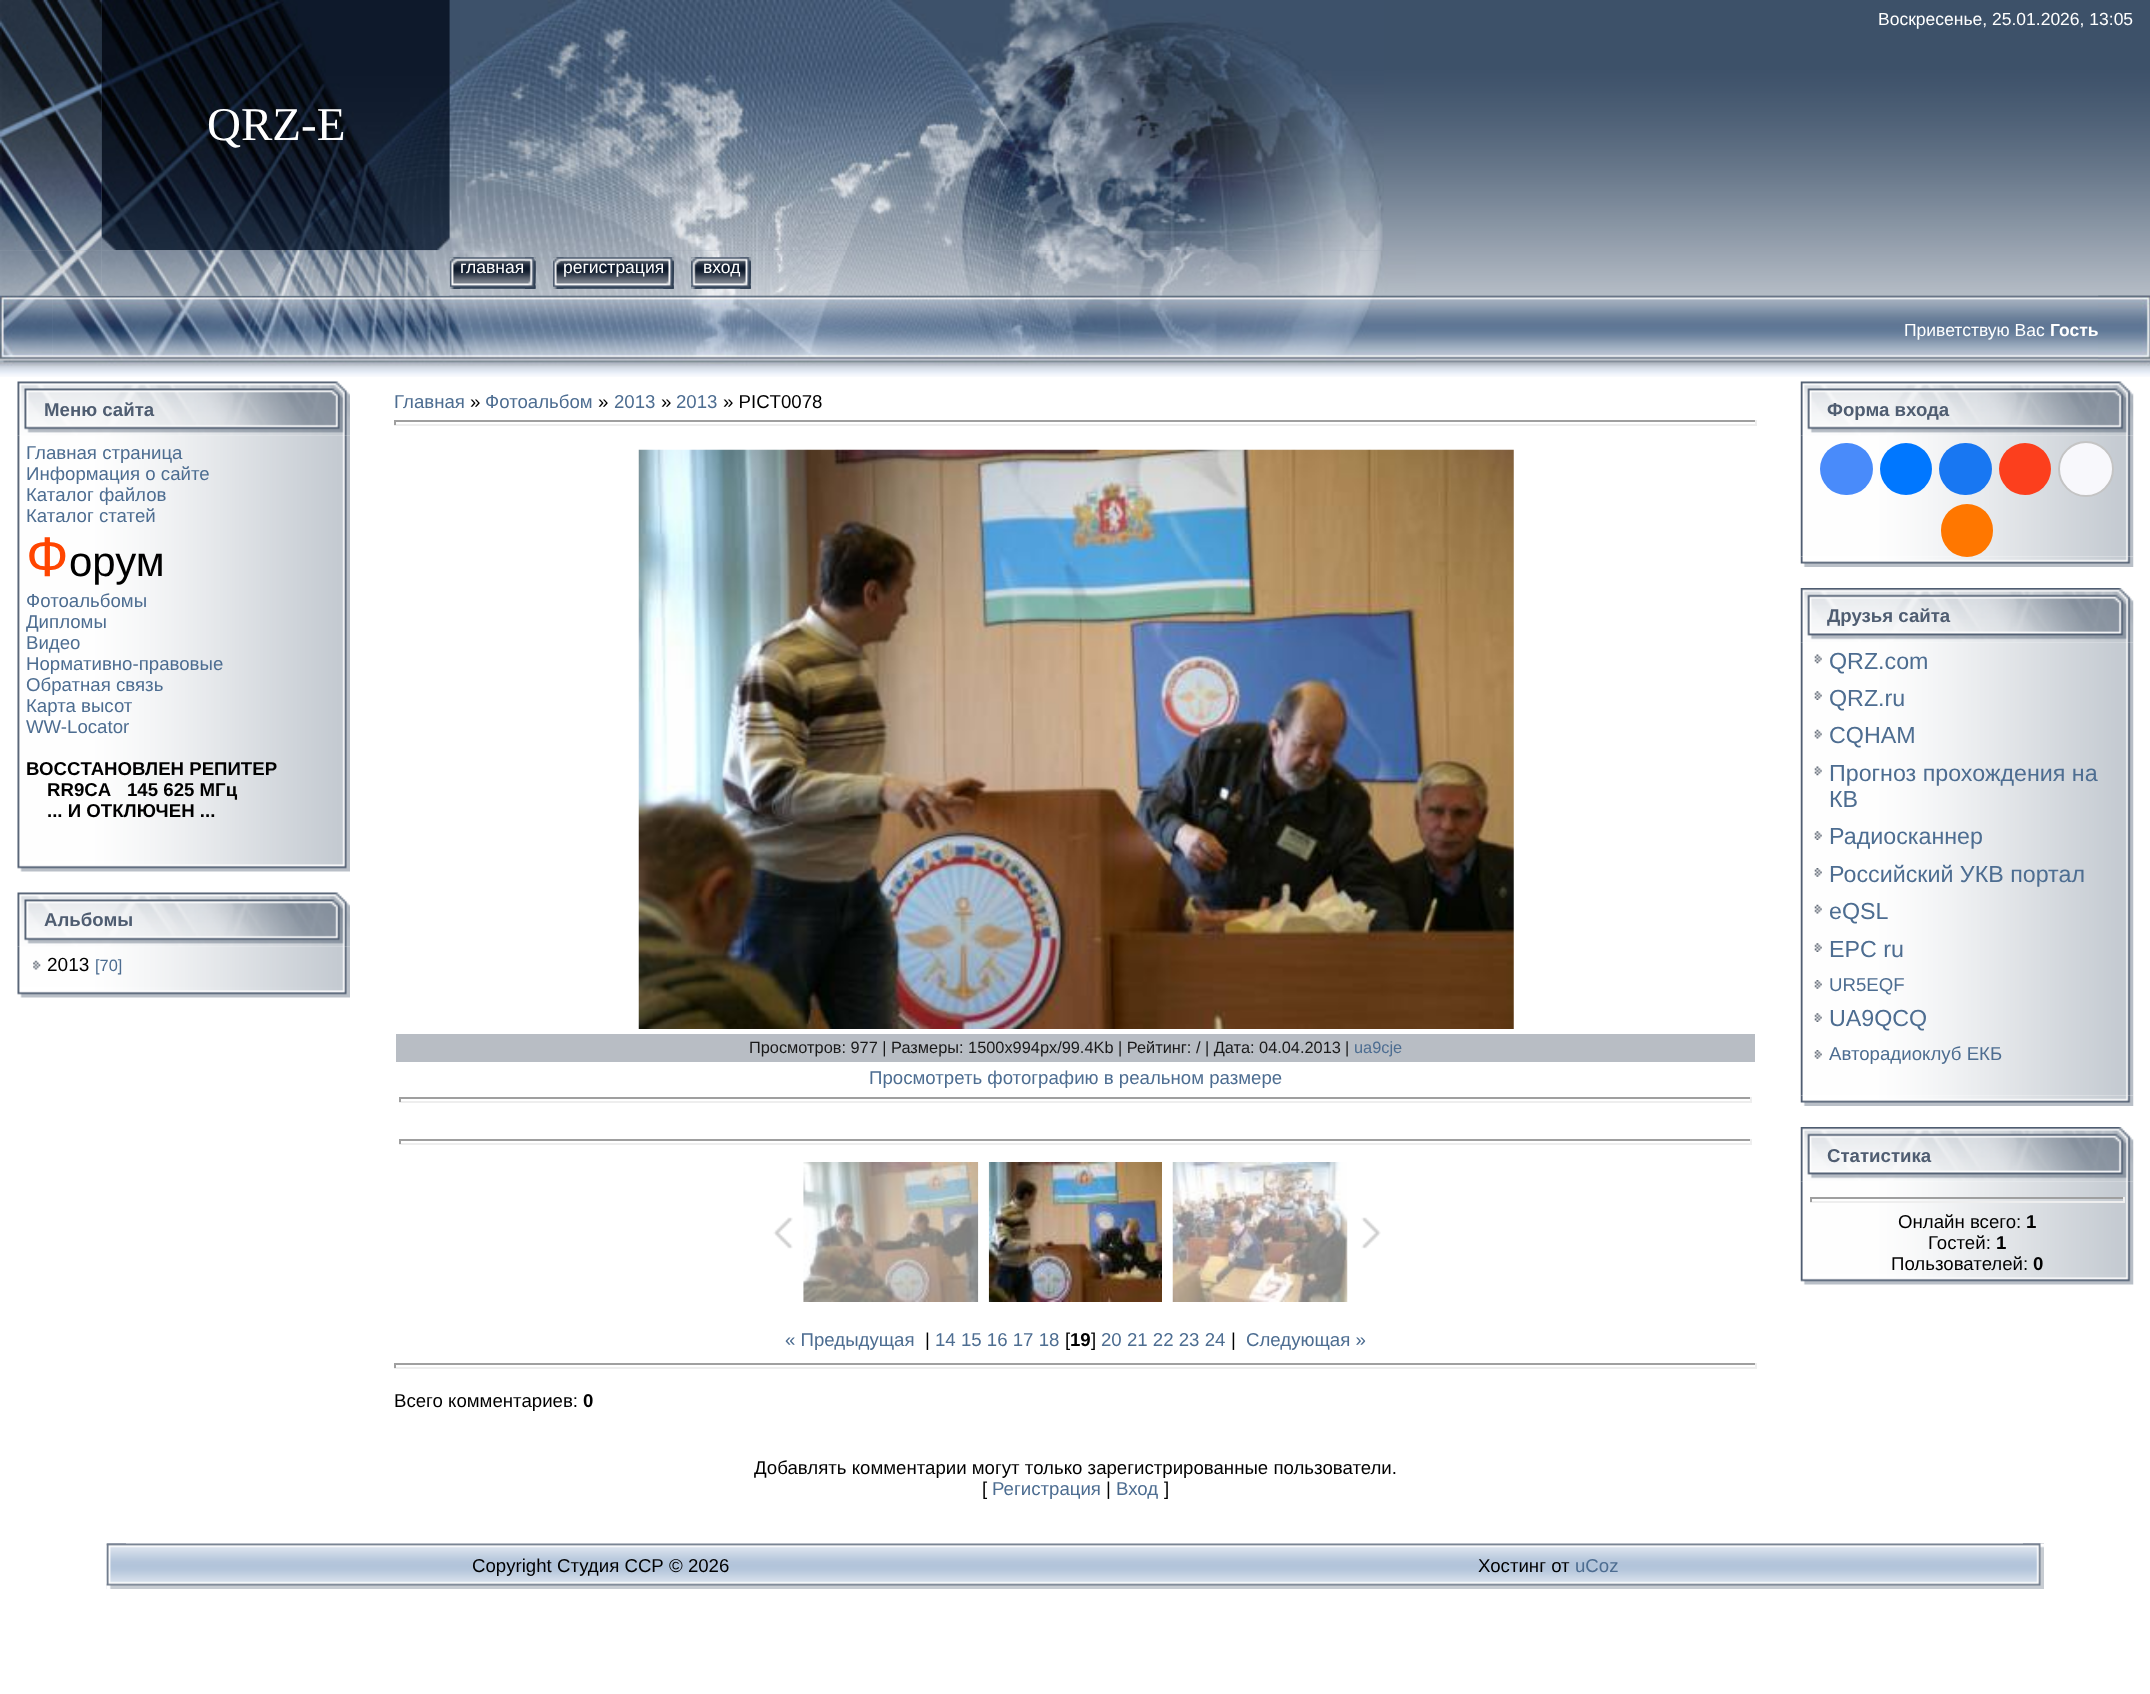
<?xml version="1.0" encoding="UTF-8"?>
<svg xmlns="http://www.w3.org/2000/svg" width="2150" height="1694">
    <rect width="100%" height="100%" fill="#FFFFFF"/>
    <image x="0" y="0" width="2150" height="377" href="img_01.png"/>
    <image x="101" y="0" width="349" height="251" href="img_04.png"/>
    <image x="0" y="0" width="102" height="251" href="img_02.png"/>
    <image x="449" y="0" width="935" height="251" href="img_03.png"/>
    <text x="1878" y="25" font-family="Liberation Sans" font-size="17.5" fill="#FFFFFF">Воскресенье, 25.01.2026, 13:05</text>
    <text x="207" y="140" font-family="Liberation Serif" font-size="47" fill="#FFFFFF">QRZ-E</text>
    <image x="449" y="250" width="967" height="46" href="img_07.png"/>
    <image x="52" y="295" width="1364" height="71" href="img_18.png"/>
    <image x="0" y="250" width="102" height="46" href="img_05.png"/>
    <image x="449" y="257" width="87" height="32" href="img_08.png"/>
    <image x="449" y="257" width="12" height="32" href="img_09.png"/>
    <image x="101" y="250" width="349" height="46" href="img_06.png"/>
    <text x="460" y="273" font-family="Liberation Sans" font-size="17.5" fill="#FFFFFF">главная</text>
    <image x="525" y="257" width="11" height="32" href="img_10.png"/>
    <image x="553" y="257" width="121" height="32" href="img_11.png"/>
    <image x="553" y="257" width="11" height="32" href="img_12.png"/>
    <text x="563" y="273" font-family="Liberation Sans" font-size="17.5" fill="#FFFFFF">регистрация</text>
    <image x="663" y="257" width="11" height="32" href="img_13.png"/>
    <image x="691" y="257" width="60" height="32" href="img_14.png"/>
    <image x="691" y="257" width="11" height="32" href="img_15.png"/>
    <text x="703" y="273" font-family="Liberation Sans" font-size="17.5" fill="#FFFFFF">вход</text>
    <image x="740" y="257" width="11" height="32" href="img_16.png"/>
    <image x="0" y="295" width="53" height="71" href="img_17.png"/>
    <text x="1904" y="336" font-family="Liberation Sans" font-size="17.5" fill="#FFFFFF">Приветствую Вас</text>
    <text x="2050" y="336" font-family="Liberation Sans" font-size="17.5" font-weight="700" fill="#FFFFFF">Гость</text>
    <image x="2098" y="295" width="52" height="71" href="img_19.png"/>
    <image x="17" y="381" width="333" height="55" href="img_20.png"/>
    <text x="44" y="416" font-family="Liberation Sans" font-size="18.65" font-weight="700" fill="#4F5D71">Меню сайта</text>
    <image x="17" y="435" width="333" height="426" href="img_21.png"/>
    <text font-family="Liberation Sans" font-size="18.65" fill="#4D6D91">
        <tspan x="26" y="459">Главная страница</tspan>
        <tspan x="26" y="480">Информация о сайте</tspan>
        <tspan x="26" y="501">Каталог файлов</tspan>
        <tspan x="26" y="522">Каталог статей</tspan>
    </text>
    <text x="26" y="576" font-family="Liberation Sans" font-size="56" fill="#FF4500">Ф</text>
    <text x="69" y="576" font-family="Liberation Sans" font-size="42" fill="#000000">орум</text>
    <text font-family="Liberation Sans" font-size="18.65" fill="#4D6D91">
        <tspan x="26" y="607">Фотоальбомы</tspan>
        <tspan x="26" y="628">Дипломы</tspan>
        <tspan x="26" y="649">Видео</tspan>
        <tspan x="26" y="670">Нормативно-правовые</tspan>
        <tspan x="26" y="691">Обратная связь</tspan>
        <tspan x="26" y="712">Карта высот</tspan>
        <tspan x="26" y="733">WW-Locator</tspan>
    </text>
    <text x="26" y="775" font-family="Liberation Sans" font-size="18.65" font-weight="700" fill="#000000">ВОСCТАНОВЛЕН РЕПИТЕР</text>
    <text x="47" y="796" font-family="Liberation Sans" font-size="18.65" font-weight="700" fill="#000000">RR9CA</text>
    <text x="127" y="796" font-family="Liberation Sans" font-size="18.65" font-weight="700" fill="#000000">145 625 МГц</text>
    <text x="47" y="817" font-family="Liberation Sans" font-size="18.65" font-weight="700" fill="#000000">... И ОТКЛЮЧЕН ...</text>
    <image x="17" y="861" width="333" height="11" href="img_22.png"/>
    <image x="17" y="892" width="333" height="55" href="img_20.png"/>
    <text x="44" y="926" font-family="Liberation Sans" font-size="18.65" font-weight="700" fill="#4F5D71">Альбомы</text>
    <image x="17" y="946" width="333" height="41" href="img_23.png"/>
    <image x="33" y="960" width="8" height="10" href="img_24.png"/>
    <text x="47" y="971" font-family="Liberation Sans" font-size="19" fill="#000000">2013</text>
    <text x="95" y="971" font-family="Liberation Sans" font-size="16.35" fill="#4D6D91">[70]</text>
    <image x="17" y="987" width="333" height="11" href="img_22.png"/>
    <text x="394" y="408" font-family="Liberation Sans" font-size="18.65" fill="#4D6D91">Главная</text>
    <text x="470" y="408" font-family="Liberation Sans" font-size="18.65" fill="#000000">»</text>
    <text x="485" y="408" font-family="Liberation Sans" font-size="18.65" fill="#4D6D91">Фотоальбом</text>
    <text x="598" y="408" font-family="Liberation Sans" font-size="18.65" fill="#000000">»</text>
    <text x="614" y="408" font-family="Liberation Sans" font-size="18.65" fill="#4D6D91">2013</text>
    <text x="661" y="408" font-family="Liberation Sans" font-size="18.65" fill="#000000">»</text>
    <text x="676" y="408" font-family="Liberation Sans" font-size="18.65" fill="#4D6D91">2013</text>
    <text x="723" y="408" font-family="Liberation Sans" font-size="18.65" fill="#000000">» PICT0078</text>
    <rect x="394" y="420" width="1363" height="2" fill="#9F9F9F"/>
    <rect x="1755" y="420" width="2" height="5" fill="#EEEEEE"/>
    <rect x="394" y="424" width="1363" height="2" fill="#EEEEEE"/>
    <rect x="394" y="420" width="2" height="5" fill="#9F9F9F"/>
    <image x="638" y="449" width="876" height="580" href="img_25.png"/>
    <rect x="396" y="1034" width="1359" height="28" fill="#B8BDC4"/>
    <text x="749" y="1053" font-family="Liberation Sans" font-size="16.35" fill="#1A1A1A">Просмотров: 977 | Размеры: 1500x994px/99.4Kb | Рейтинг: / | Дата: 04.04.2013</text>
    <text x="1345" y="1053" font-family="Liberation Sans" font-size="16.35" fill="#1A1A1A">|</text>
    <text x="1354" y="1053" font-family="Liberation Sans" font-size="16.35" fill="#4D6D91">ua9cje</text>
    <text x="869" y="1084" font-family="Liberation Sans" font-size="18.65" fill="#4D6D91">Просмотреть фотографию в реальном размере</text>
    <rect x="399" y="1097" width="1353" height="2" fill="#9F9F9F"/>
    <rect x="1750" y="1097" width="2" height="5" fill="#EEEEEE"/>
    <rect x="399" y="1101" width="1353" height="2" fill="#EEEEEE"/>
    <rect x="399" y="1097" width="2" height="5" fill="#9F9F9F"/>
    <rect x="399" y="1139" width="1353" height="2" fill="#9F9F9F"/>
    <rect x="1750" y="1139" width="2" height="5" fill="#EEEEEE"/>
    <rect x="399" y="1143" width="1353" height="2" fill="#EEEEEE"/>
    <rect x="399" y="1139" width="2" height="5" fill="#9F9F9F"/>
    <image x="773" y="1217" width="20" height="32" href="img_26.png"/>
    <image x="803" y="1162" width="176" height="140" href="img_27.png"/>
    <image x="988" y="1162" width="174" height="140" href="img_28.png"/>
    <image x="1172" y="1162" width="176" height="140" href="img_29.png"/>
    <image x="1361" y="1217" width="20" height="32" href="img_30.png"/>
    <text x="785" y="1346" font-family="Liberation Sans" font-size="18.65" fill="#4D6D91">« Предыдущая</text>
    <text x="925" y="1346" font-family="Liberation Sans" font-size="18.65" fill="#000000">|</text>
    <text x="935" y="1346" font-family="Liberation Sans" font-size="18.65" fill="#4D6D91">14 15 16 17 18</text>
    <text x="1065" y="1346" font-family="Liberation Sans" font-size="18.65" fill="#000000">[</text>
    <text x="1070" y="1346" font-family="Liberation Sans" font-size="18.65" font-weight="700" fill="#000000">19</text>
    <text x="1091" y="1346" font-family="Liberation Sans" font-size="18.65" fill="#000000">]</text>
    <text x="1101" y="1346" font-family="Liberation Sans" font-size="18.65" fill="#4D6D91">20 21 22 23 24</text>
    <text x="1231" y="1346" font-family="Liberation Sans" font-size="18.65" fill="#000000">|</text>
    <text x="1246" y="1346" font-family="Liberation Sans" font-size="18.65" fill="#4D6D91">Следующая »</text>
    <rect x="394" y="1363" width="1363" height="2" fill="#9F9F9F"/>
    <rect x="1755" y="1363" width="2" height="5" fill="#EEEEEE"/>
    <rect x="394" y="1367" width="1363" height="2" fill="#EEEEEE"/>
    <rect x="394" y="1363" width="2" height="5" fill="#9F9F9F"/>
    <text x="394" y="1407" font-family="Liberation Sans" font-size="18.65" fill="#000000">Всего комментариев:</text>
    <text x="583" y="1407" font-family="Liberation Sans" font-size="18.65" font-weight="700" fill="#000000">0</text>
    <text x="754" y="1474" font-family="Liberation Sans" font-size="18.65" fill="#000000">Добавлять комментарии могут только зарегистрированные пользователи.</text>
    <text x="982" y="1495" font-family="Liberation Sans" font-size="18.65" fill="#000000">[</text>
    <text x="992" y="1495" font-family="Liberation Sans" font-size="18.65" fill="#4D6D91">Регистрация</text>
    <text x="1106" y="1495" font-family="Liberation Sans" font-size="18.65" fill="#000000">|</text>
    <text x="1116" y="1495" font-family="Liberation Sans" font-size="18.65" fill="#4D6D91">Вход</text>
    <text x="1164" y="1495" font-family="Liberation Sans" font-size="18.65" fill="#000000">]</text>
    <image x="1800" y="381" width="334" height="55" href="img_31.png"/>
    <text x="1827" y="416" font-family="Liberation Sans" font-size="18.65" font-weight="700" fill="#4F5D71">Форма входа</text>
    <image x="1800" y="435" width="334" height="122" href="img_32.png"/>
    <rect x="1820" y="443" width="53" height="52" rx="26" fill="#498BFA"/>
    <circle cx="1906" cy="469" r="26" fill="#0077FF"/>
    <rect x="1939" y="443" width="53" height="52" rx="26" fill="#1877F2"/>
    <circle cx="2025" cy="469" r="26" fill="#FC3F1D"/>
    <circle cx="2086" cy="469" r="27" fill="#F8F8FC" stroke="#C4C4C4" stroke-width="2"/>
    <image x="1800" y="556" width="334" height="11" href="img_33.png"/>
    <rect x="1941" y="504" width="52" height="53" rx="26" fill="#FF7700"/>
    <image x="1800" y="588" width="334" height="55" href="img_34.png"/>
    <text x="1827" y="622" font-family="Liberation Sans" font-size="18.65" font-weight="700" fill="#4F5D71">Друзья сайта</text>
    <image x="1800" y="642" width="334" height="454" href="img_35.png"/>
    <image x="1814" y="654" width="8" height="10" href="img_36.png"/>
    <text x="1829" y="669" font-family="Liberation Sans" font-size="23.25" fill="#4D6D91">QRZ.com</text>
    <image x="1814" y="691" width="8" height="9" href="img_37.png"/>
    <text x="1829" y="706" font-family="Liberation Sans" font-size="23.25" fill="#4D6D91">QRZ.ru</text>
    <image x="1814" y="729" width="8" height="10" href="img_38.png"/>
    <text x="1829" y="743" font-family="Liberation Sans" font-size="23.25" fill="#4D6D91">CQHAM</text>
    <image x="1814" y="766" width="8" height="10" href="img_36.png"/>
    <text font-family="Liberation Sans" font-size="23.25" fill="#4D6D91">
        <tspan x="1829" y="781">Прогноз прохождения на</tspan>
        <tspan x="1829" y="807">КВ</tspan>
    </text>
    <image x="1814" y="831" width="8" height="9" href="img_37.png"/>
    <text x="1829" y="844" font-family="Liberation Sans" font-size="23.25" fill="#4D6D91">Радиосканнер</text>
    <image x="1814" y="868" width="8" height="9" href="img_39.png"/>
    <text x="1829" y="882" font-family="Liberation Sans" font-size="23.25" fill="#4D6D91">Российский УКВ портал</text>
    <image x="1814" y="904" width="8" height="10" href="img_38.png"/>
    <text x="1829" y="919" font-family="Liberation Sans" font-size="23.25" fill="#4D6D91">eQSL</text>
    <image x="1814" y="943" width="8" height="9" href="img_37.png"/>
    <text x="1829" y="957" font-family="Liberation Sans" font-size="23.25" fill="#4D6D91">EPC ru</text>
    <image x="1814" y="980" width="8" height="9" href="img_39.png"/>
    <text x="1829" y="991" font-family="Liberation Sans" font-size="18.65" fill="#4D6D91">UR5EQF</text>
    <image x="1814" y="1013" width="8" height="9" href="img_37.png"/>
    <text x="1829" y="1026" font-family="Liberation Sans" font-size="23.25" fill="#4D6D91">UA9QCQ</text>
    <image x="1814" y="1050" width="8" height="9" href="img_39.png"/>
    <text x="1829" y="1060" font-family="Liberation Sans" font-size="18.65" fill="#4D6D91">Авторадиоклуб ЕКБ</text>
    <image x="1800" y="1095" width="334" height="11" href="img_33.png"/>
    <image x="1800" y="1127" width="334" height="55" href="img_34.png"/>
    <text x="1827" y="1162" font-family="Liberation Sans" font-size="18.65" font-weight="700" fill="#4F5D71">Статистика</text>
    <image x="1800" y="1181" width="334" height="93" href="img_40.png"/>
    <rect x="1810" y="1197" width="315" height="2" fill="#9F9F9F"/>
    <rect x="2123" y="1197" width="2" height="5" fill="#EEEEEE"/>
    <rect x="1810" y="1201" width="315" height="2" fill="#EEEEEE"/>
    <rect x="1810" y="1197" width="2" height="5" fill="#9F9F9F"/>
    <text x="1898" y="1228" font-family="Liberation Sans" font-size="18.65" fill="#000000">Онлайн всего:</text>
    <text x="2026" y="1228" font-family="Liberation Sans" font-size="18.65" font-weight="700" fill="#000000">1</text>
    <text x="1928" y="1249" font-family="Liberation Sans" font-size="18.65" fill="#000000">Гостей:</text>
    <text x="1996" y="1249" font-family="Liberation Sans" font-size="18.65" font-weight="700" fill="#000000">1</text>
    <text x="1891" y="1270" font-family="Liberation Sans" font-size="18.65" fill="#000000">Пользователей:</text>
    <text x="2033" y="1270" font-family="Liberation Sans" font-size="18.65" font-weight="700" fill="#000000">0</text>
    <image x="1800" y="1274" width="334" height="11" href="img_41.png"/>
    <image x="106" y="1543" width="1938" height="46" href="img_42.png"/>
    <image x="106" y="1543" width="20" height="46" href="img_43.png"/>
    <text x="472" y="1572" font-family="Liberation Sans" font-size="18.65" fill="#000000">Copyright Cтудия ССР © 2026</text>
    <text x="1478" y="1572" font-family="Liberation Sans" font-size="18.65" fill="#000000">Хостинг от</text>
    <text x="1575" y="1572" font-family="Liberation Sans" font-size="18.65" fill="#4D6D91">uCoz</text>
    <image x="2023" y="1543" width="21" height="43" href="img_44.png"/>
</svg>
